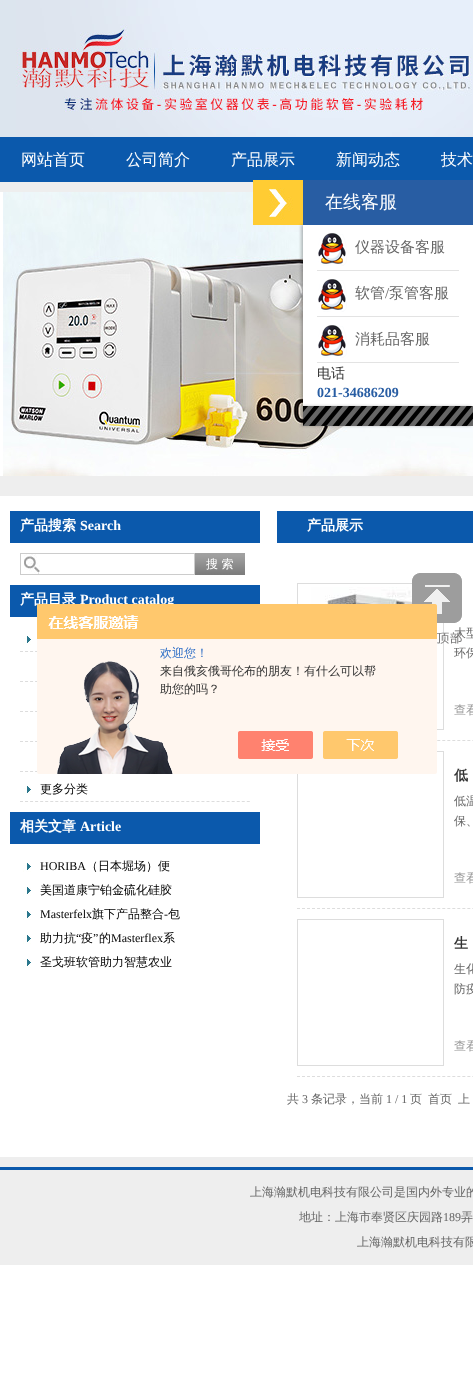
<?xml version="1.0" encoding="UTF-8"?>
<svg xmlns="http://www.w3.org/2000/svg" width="473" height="1377">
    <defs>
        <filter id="blur1" x="-50%" y="-200%" width="200%" height="500%"><feGaussianBlur stdDeviation="1.5"/></filter>
    </defs>
    <rect width="100%" height="100%" fill="#FFFFFF"/>
    <rect x="0" y="0" width="16" height="137" fill="#DCE5EE"/>
    <image x="16" y="0" width="457" height="137" href="img_01.png"/>
    <rect x="0" y="137" width="473" height="45" fill="#0B59AC"/>
    <text x="21" y="165" font-family="WenQuanYi Zen Hei" font-size="16" font-weight="500" fill="#FFFFFF">网站首页</text>
    <text x="126" y="165" font-family="WenQuanYi Zen Hei" font-size="16" font-weight="500" fill="#FFFFFF">公司简介</text>
    <text x="231" y="165" font-family="WenQuanYi Zen Hei" font-size="16" font-weight="500" fill="#FFFFFF">产品展示</text>
    <text x="336" y="165" font-family="WenQuanYi Zen Hei" font-size="16" font-weight="500" fill="#FFFFFF">新闻动态</text>
    <text x="441" y="165" font-family="WenQuanYi Zen Hei" font-size="16" font-weight="500" fill="#FFFFFF">技术</text>
    <rect x="0" y="182" width="473" height="1083" fill="#EEEEEE"/>
    <image x="3" y="192" width="470" height="284" href="img_03.png"/>
    <image x="253" y="180" width="50" height="45" href="img_02.png"/>
    <rect x="0" y="192" width="3" height="284" fill="#FFFFFF"/>
    <rect x="301" y="225" width="170" height="181" fill="#000000" fill-opacity="0.25" filter="url(#blur1)"/>
    <rect x="303" y="180" width="170" height="45" fill="#285DA3"/>
    <text x="325" y="208" font-family="WenQuanYi Zen Hei" font-size="18" font-weight="500" fill="#FFFFFF">在线客服</text>
    <rect x="303" y="225" width="170" height="181" fill="#FFFFFF"/>
    <rect x="317" y="270" width="142" height="1" fill="#E3E3E3"/>
    <image x="318" y="233" width="29" height="33" href="img_04.png"/>
    <text x="355" y="252" font-family="WenQuanYi Zen Hei" font-size="15" font-weight="500" fill="#666666">仪器设备客服</text>
    <rect x="317" y="316" width="142" height="1" fill="#E3E3E3"/>
    <image x="318" y="279" width="29" height="33" href="img_04.png"/>
    <text x="355" y="298" font-family="WenQuanYi Zen Hei" font-size="15" font-weight="500" fill="#666666">软管</text>
    <text x="385" y="298" font-family="Liberation Serif" font-size="15" fill="#666666">/</text>
    <text x="389" y="298" font-family="WenQuanYi Zen Hei" font-size="15" font-weight="500" fill="#666666">泵管客服</text>
    <rect x="317" y="362" width="142" height="1" fill="#E3E3E3"/>
    <image x="318" y="325" width="29" height="33" href="img_04.png"/>
    <text x="355" y="344" font-family="WenQuanYi Zen Hei" font-size="15" font-weight="500" fill="#666666">消耗品客服</text>
    <text x="317" y="378" font-family="WenQuanYi Zen Hei" font-size="14" font-weight="500" fill="#333333">电话</text>
    <text x="317" y="397" font-family="Liberation Serif" font-size="14" font-weight="700" fill="#285DA3">021-34686209</text>
    <rect x="301" y="406" width="170" height="20" fill="#000000" fill-opacity="0.25" filter="url(#blur1)"/>
    <image x="303" y="406" width="170" height="20" href="img_05.png"/>
    <rect x="0" y="496" width="473" height="661" fill="#FFFFFF"/>
    <rect x="297.5" y="583.5" width="146" height="146" fill="none" stroke="#DDDDDD"/>
    <text x="454" y="637" font-family="WenQuanYi Zen Hei" font-size="12" font-weight="500" fill="#666666">大型</text>
    <image x="412" y="573" width="50" height="71" href="img_06.png"/>
    <rect x="10" y="511" width="250" height="32" fill="#0B59AC"/>
    <text x="20" y="530" font-family="WenQuanYi Zen Hei" font-size="14" font-weight="700" fill="#FFFFFF">产品搜索</text>
    <text x="80" y="530" font-family="Liberation Serif" font-size="14" font-weight="700" fill="#FFFFFF">Search</text>
    <image x="24" y="554" width="16" height="20" href="img_07.png"/>
    <rect x="20.5" y="553.5" width="174" height="21" fill="none" stroke="#CCCCCC"/>
    <image x="195" y="553" width="50" height="22" href="img_08.png"/>
    <text x="206" y="568" font-family="WenQuanYi Zen Hei" font-size="12" font-weight="500" fill="#FFFFFF">搜 索</text>
    <rect x="10" y="585" width="250" height="32" fill="#0B59AC"/>
    <text x="20" y="604" font-family="WenQuanYi Zen Hei" font-size="14" font-weight="700" fill="#FFFFFF">产品目录</text>
    <text x="80" y="604" font-family="Liberation Serif" font-size="14" font-weight="700" fill="#FFFFFF">Product catalog</text>
    <image x="23" y="636" width="8" height="9" href="img_09.png"/>
    <path d="M 20 651.5 H 250" fill="none" stroke="#DDDDDD" stroke-dasharray="3 2.04"/>
    <path d="M 20 681.5 H 250" fill="none" stroke="#DDDDDD" stroke-dasharray="3 2.04"/>
    <path d="M 20 711.5 H 250" fill="none" stroke="#DDDDDD" stroke-dasharray="3 2.04"/>
    <path d="M 20 741.5 H 250" fill="none" stroke="#DDDDDD" stroke-dasharray="3 2.04"/>
    <path d="M 20 771.5 H 250" fill="none" stroke="#DDDDDD" stroke-dasharray="3 2.04"/>
    <image x="23" y="786" width="8" height="9" href="img_09.png"/>
    <path d="M 20 801.5 H 250" fill="none" stroke="#DDDDDD" stroke-dasharray="3 2.04"/>
    <text x="40" y="793" font-family="WenQuanYi Zen Hei" font-size="12" font-weight="500" fill="#000000">更多分类</text>
    <rect x="10" y="812" width="250" height="32" fill="#0B59AC"/>
    <text x="20" y="831" font-family="WenQuanYi Zen Hei" font-size="14" font-weight="700" fill="#FFFFFF">相关文章</text>
    <text x="80" y="831" font-family="Liberation Serif" font-size="14" font-weight="700" fill="#FFFFFF">Article</text>
    <image x="23" y="863" width="8" height="9" href="img_09.png"/>
    <text x="40" y="870" font-family="Liberation Serif" font-size="12" fill="#000000">HORIBA</text>
    <text x="86" y="870" font-family="WenQuanYi Zen Hei" font-size="12" font-weight="500" fill="#000000">（日本堀场）便</text>
    <image x="23" y="887" width="8" height="9" href="img_09.png"/>
    <text x="40" y="894" font-family="WenQuanYi Zen Hei" font-size="12" font-weight="500" fill="#000000">美国道康宁铂金硫化硅胶</text>
    <image x="23" y="911" width="8" height="9" href="img_09.png"/>
    <text x="40" y="918" font-family="Liberation Serif" font-size="12" fill="#000000">Masterfelx</text>
    <text x="92" y="918" font-family="WenQuanYi Zen Hei" font-size="12" font-weight="500" fill="#000000">旗下产品整合</text>
    <text x="164" y="918" font-family="Liberation Serif" font-size="12" fill="#000000">-</text>
    <text x="168" y="918" font-family="WenQuanYi Zen Hei" font-size="12" font-weight="500" fill="#000000">包</text>
    <image x="23" y="935" width="8" height="9" href="img_09.png"/>
    <text x="40" y="942" font-family="WenQuanYi Zen Hei" font-size="12" font-weight="500" fill="#000000">助力抗</text>
    <text x="76" y="942" font-family="Liberation Serif" font-size="12" fill="#000000">“</text>
    <text x="81" y="942" font-family="WenQuanYi Zen Hei" font-size="12" font-weight="500" fill="#000000">疫</text>
    <text x="93" y="942" font-family="Liberation Serif" font-size="12" fill="#000000">”</text>
    <text x="99" y="942" font-family="WenQuanYi Zen Hei" font-size="12" font-weight="500" fill="#000000">的</text>
    <text x="111" y="942" font-family="Liberation Serif" font-size="12" fill="#000000">Masterflex</text>
    <text x="163" y="942" font-family="WenQuanYi Zen Hei" font-size="12" font-weight="500" fill="#000000">系</text>
    <image x="23" y="959" width="8" height="9" href="img_09.png"/>
    <text x="40" y="966" font-family="WenQuanYi Zen Hei" font-size="12" font-weight="500" fill="#000000">圣戈班软管助力智慧农业</text>
    <rect x="277" y="511" width="196" height="32" fill="#0B59AC"/>
    <text x="307" y="530" font-family="WenQuanYi Zen Hei" font-size="14" font-weight="700" fill="#FFFFFF">产品展示</text>
    <path d="M 297 740.5 H 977" fill="none" stroke="#DDDDDD" stroke-dasharray="3 2.01"/>
    <image x="311" y="587" width="101" height="17" href="img_10.png"/>
    <text x="454" y="657" font-family="WenQuanYi Zen Hei" font-size="12" font-weight="500" fill="#666666">环保</text>
    <text x="454" y="714" font-family="WenQuanYi Zen Hei" font-size="12" font-weight="500" fill="#999999">查看</text>
    <path d="M 297 908.5 H 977" fill="none" stroke="#DDDDDD" stroke-dasharray="3 2.01"/>
    <rect x="297.5" y="751.5" width="146" height="146" fill="none" stroke="#DDDDDD"/>
    <text x="454" y="780" word-spacing="-1" font-family="WenQuanYi Zen Hei" font-size="14" font-weight="700" fill="#333333">低</text>
    <text font-family="WenQuanYi Zen Hei" font-size="12" font-weight="500" fill="#666666">
        <tspan x="454" y="805" word-spacing="-1">低温</tspan>
        <tspan x="454" y="825">保、</tspan>
    </text>
    <text x="454" y="882" font-family="WenQuanYi Zen Hei" font-size="12" font-weight="500" fill="#999999">查看</text>
    <path d="M 297 1076.5 H 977" fill="none" stroke="#DDDDDD" stroke-dasharray="3 2.01"/>
    <rect x="297.5" y="919.5" width="146" height="146" fill="none" stroke="#DDDDDD"/>
    <text x="454" y="948" font-family="WenQuanYi Zen Hei" font-size="14" font-weight="700" fill="#333333">生</text>
    <text font-family="WenQuanYi Zen Hei" font-size="12" font-weight="500" fill="#666666">
        <tspan x="454" y="973">生化</tspan>
        <tspan x="454" y="993">防疫</tspan>
    </text>
    <text x="454" y="1050" font-family="WenQuanYi Zen Hei" font-size="12" font-weight="500" fill="#999999">查看</text>
    <text x="287" y="1103" font-family="WenQuanYi Zen Hei" font-size="12" font-weight="500" fill="#666666">共</text>
    <text x="302" y="1103" font-family="Liberation Serif" font-size="12" fill="#666666">3</text>
    <text x="311" y="1103" font-family="WenQuanYi Zen Hei" font-size="12" font-weight="500" fill="#666666">条记录，当前</text>
    <text x="386" y="1103" font-family="Liberation Serif" font-size="12" fill="#666666">1 / 1</text>
    <text x="410" y="1103" font-family="WenQuanYi Zen Hei" font-size="12" font-weight="500" fill="#666666">页</text>
    <text x="428" y="1103" font-family="WenQuanYi Zen Hei" font-size="12" font-weight="500" fill="#666666">首页</text>
    <text x="458" y="1103" font-family="WenQuanYi Zen Hei" font-size="12" font-weight="500" fill="#666666">上</text>
    <rect x="0" y="1167" width="473" height="3" fill="#0B59AC"/>
    <text x="250" y="1196" font-family="WenQuanYi Zen Hei" font-size="12" font-weight="500" fill="#666666">上海瀚默机电科技有限公司是国内外专业的</text>
    <text x="299" y="1221" font-family="WenQuanYi Zen Hei" font-size="12" font-weight="500" fill="#666666">地址：上海市奉贤区庆园路</text>
    <text x="443" y="1221" font-family="Liberation Serif" font-size="12" fill="#666666">189</text>
    <text x="461" y="1221" font-family="WenQuanYi Zen Hei" font-size="12" font-weight="500" fill="#666666">弄</text>
    <text x="357" y="1246" word-spacing="-1" font-family="WenQuanYi Zen Hei" font-size="12" font-weight="500" fill="#666666">上海瀚默机电科技有限</text>
    <image x="37" y="604" width="400" height="170" href="img_11.png"/>
    <text x="160" y="657" font-family="WenQuanYi Zen Hei" font-size="12" font-weight="500" fill="#2E6EC6">欢迎您！</text>
    <text font-family="WenQuanYi Zen Hei" font-size="12" font-weight="500" fill="#333333">
        <tspan x="160" y="675">来自俄亥俄哥伦布的朋友！有什么可以帮</tspan>
        <tspan x="160" y="693">助您的吗？</tspan>
    </text>
</svg>
